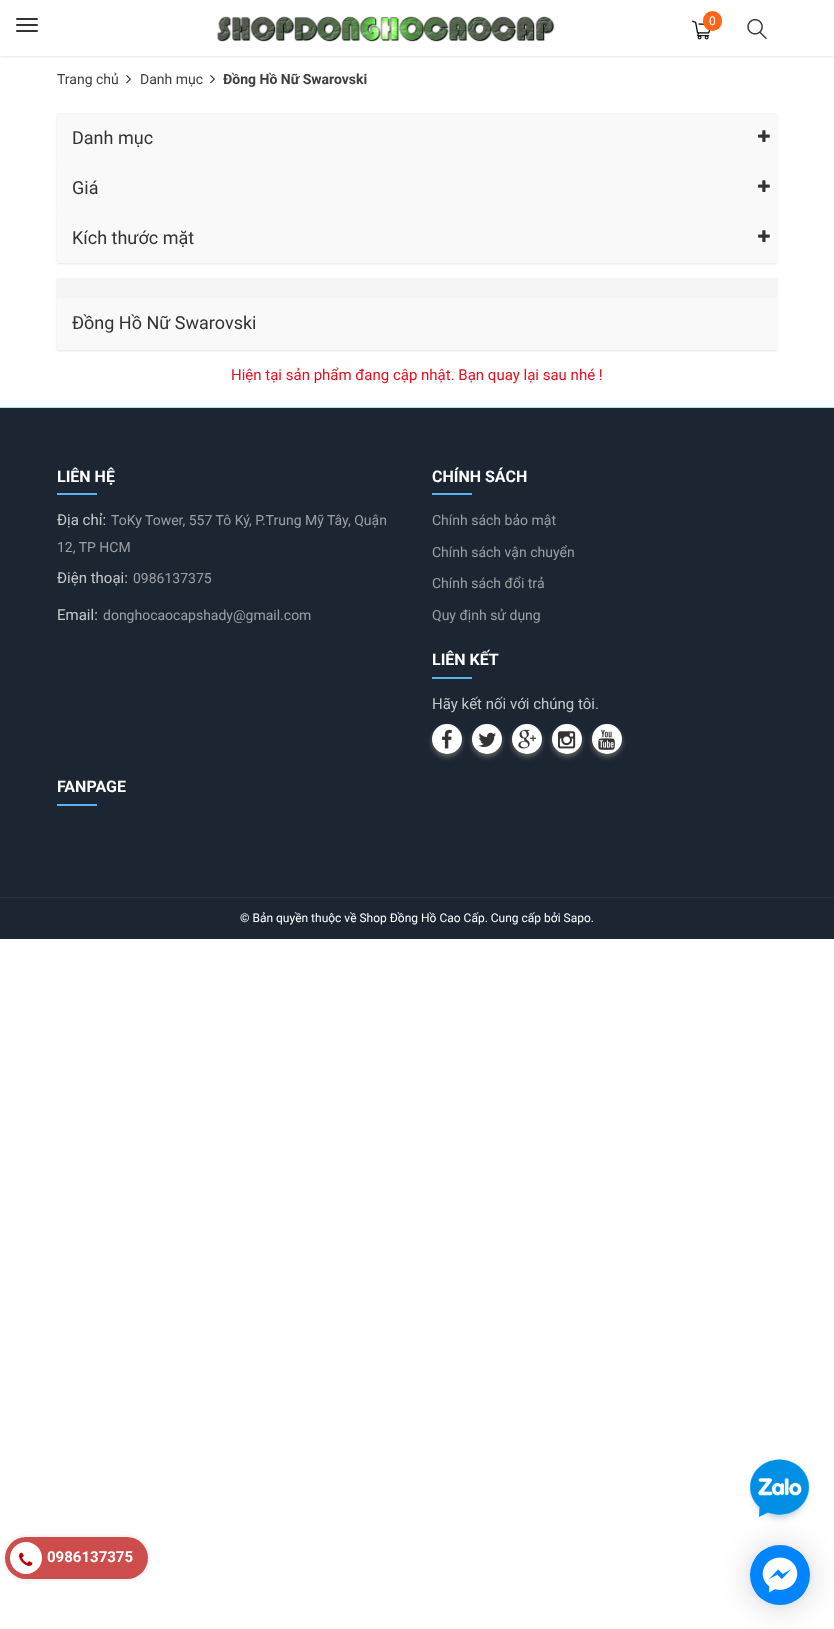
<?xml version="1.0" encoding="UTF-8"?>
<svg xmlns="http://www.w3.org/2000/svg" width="834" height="1629">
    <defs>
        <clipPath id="clip1"><rect x="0" y="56" width="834" height="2"/></clipPath>
        <filter id="blur1" x="-50%" y="-200%" width="200%" height="500%"><feGaussianBlur stdDeviation="1.5"/></filter>
        <filter id="blur2" x="-50%" y="-200%" width="200%" height="500%"><feGaussianBlur stdDeviation="1"/></filter>
        <filter id="blur3" x="-50%" y="-200%" width="200%" height="500%"><feGaussianBlur stdDeviation="2.5"/></filter>
        <filter id="blur4" x="-50%" y="-200%" width="200%" height="500%"><feGaussianBlur stdDeviation="16"/></filter>
        <clipPath id="clip2"><path d="M 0 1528 H 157 V 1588 H 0 Z M 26 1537 H 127 C 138.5 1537 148 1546.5 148 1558 C 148 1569.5 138.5 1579 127 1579 H 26 C 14.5 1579 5 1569.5 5 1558 C 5 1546.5 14.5 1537 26 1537 Z" clip-rule="evenodd"/></clipPath>
        <filter id="blur5" x="-50%" y="-200%" width="200%" height="500%"><feGaussianBlur stdDeviation="3"/></filter>
    </defs>
    <rect width="100%" height="100%" fill="#FFFFFF"/>
    <g clip-path="url(#clip1)">
        <rect x="0" y="1" width="834" height="56" fill="#000000" fill-opacity="0.09" filter="url(#blur1)"/>
    </g>
    <rect x="16" y="18" width="22" height="2" rx="1" fill="#333333"/>
    <rect x="16" y="24" width="22" height="2" rx="1" fill="#333333"/>
    <rect x="16" y="30" width="22" height="2" rx="1" fill="#333333"/>
    <image x="216" y="16" width="339" height="26" href="img_01.png"/>
    <image x="692" y="20" width="19" height="20" href="img_02.png"/>
    <rect x="703" y="11" width="19" height="20" rx="9.5" fill="#FF6517"/>
    <text x="709" y="25" font-family="Roboto" font-size="12" fill="#FFFFFF">0</text>
    <image x="747" y="19" width="20" height="20" href="img_03.png"/>
    <text x="57" y="84" font-family="Roboto" font-size="14" fill="#3E3E3E">Trang chủ</text>
    <image x="126" y="75" width="5" height="9" href="img_04.png"/>
    <text x="140" y="84" font-family="Roboto" font-size="14" fill="#3E3E3E">Danh mục</text>
    <image x="210" y="75" width="5" height="9" href="img_04.png"/>
    <text x="223" y="84" font-family="Roboto" font-size="14" font-weight="700" fill="#3E3E3E">Đồng Hồ Nữ Swarovski</text>
    <rect x="57" y="114" width="720" height="50" fill="#000000" fill-opacity="0.1" filter="url(#blur2)"/>
    <rect x="57" y="114" width="720" height="49" fill="#F9F9F9"/>
    <text x="72" y="144" font-family="Roboto" font-size="18" fill="#333333">Danh mục</text>
    <image x="758" y="130" width="12" height="12" href="img_05.png"/>
    <rect x="57" y="164" width="720" height="50" fill="#000000" fill-opacity="0.1" filter="url(#blur2)"/>
    <rect x="57" y="163" width="720" height="50" fill="#F9F9F9"/>
    <text x="72" y="194" font-family="Roboto" font-size="18" fill="#333333">Giá</text>
    <image x="758" y="180" width="12" height="12" href="img_05.png"/>
    <rect x="57" y="214" width="720" height="50" fill="#000000" fill-opacity="0.1" filter="url(#blur2)"/>
    <rect x="57" y="213" width="720" height="50" fill="#F9F9F9"/>
    <text x="72" y="244" font-family="Roboto" font-size="18" fill="#333333">Kích thước mặt</text>
    <image x="758" y="230" width="12" height="12" href="img_05.png"/>
    <rect x="57" y="279" width="720" height="20" fill="#000000" fill-opacity="0.1" filter="url(#blur2)"/>
    <rect x="57" y="278" width="720" height="20" fill="#F5F5F5"/>
    <rect x="57" y="299" width="720" height="52" fill="#000000" fill-opacity="0.1" filter="url(#blur2)"/>
    <rect x="57" y="298" width="720" height="52" fill="#F9F9F9"/>
    <text x="72" y="329" font-family="Roboto" font-size="18" fill="#333333">Đồng Hồ Nữ Swarovski</text>
    <text x="231" y="380" font-family="Roboto" font-size="15" fill="#E60F1E">Hiện tại sản phẩm đang cập nhật. Bạn quay lại sau nhé !</text>
    <rect x="0" y="408" width="834" height="531" fill="#1C2632"/>
    <rect x="0" y="407" width="834" height="1" fill="#ADDEF0"/>
    <text x="57" y="482" font-family="Roboto" font-size="16" font-weight="700" fill="#FFFFFF">LIÊN HỆ</text>
    <rect x="57" y="493" width="40" height="2" fill="#58B3F0"/>
    <text x="57" y="525" font-family="Roboto" font-size="15" fill="#C6C9CC">Địa chỉ:</text>
    <text x="111" y="525" font-family="Roboto" font-size="14" fill="#9CA0A5">ToKy Tower, 557 Tô Ký, P.Trung Mỹ Tây, Quận</text>
    <text x="57" y="552" font-family="Roboto" font-size="14" fill="#9CA0A5">12, TP HCM</text>
    <text x="57" y="583" font-family="Roboto" font-size="15" fill="#C6C9CC">Điện thoại:</text>
    <text x="133" y="583" font-family="Roboto" font-size="14" fill="#9CA0A5">0986137375</text>
    <text x="57" y="620" font-family="Roboto" font-size="15" fill="#C6C9CC">Email:</text>
    <text x="103" y="620" font-family="Roboto" font-size="14" fill="#9CA0A5">donghocaocapshady@gmail.com</text>
    <text x="432" y="482" font-family="Roboto" font-size="16" font-weight="700" fill="#FFFFFF">CHÍNH SÁCH</text>
    <rect x="432" y="493" width="40" height="2" fill="#58B3F0"/>
    <text x="432" y="525" font-family="Roboto" font-size="14" fill="#9CA0A5">Chính sách bảo mật</text>
    <text x="432" y="557" font-family="Roboto" font-size="14" fill="#9CA0A5">Chính sách vận chuyển</text>
    <text x="432" y="588" font-family="Roboto" font-size="14" fill="#9CA0A5">Chính sách đổi trả</text>
    <text x="432" y="620" font-family="Roboto" font-size="14" fill="#9CA0A5">Quy định sử dụng</text>
    <text x="432" y="665" font-family="Roboto" font-size="16" font-weight="700" fill="#FFFFFF">LIÊN KẾT</text>
    <rect x="432" y="677" width="40" height="2" fill="#58B3F0"/>
    <text x="432" y="709" font-family="Roboto" font-size="15" fill="#C6C9CC">Hãy kết nối với chúng tôi.</text>
    <rect x="432" y="727" width="30" height="30" rx="15" fill="#616161" filter="url(#blur3)"/>
    <circle cx="447" cy="739" r="15" fill="#FFFFFF"/>
    <image x="442" y="729" width="10" height="20" href="img_06.png"/>
    <rect x="472" y="727" width="30" height="30" rx="15" fill="#616161" filter="url(#blur3)"/>
    <circle cx="487" cy="739" r="15" fill="#FFFFFF"/>
    <image x="478" y="732" width="18" height="15" href="img_07.png"/>
    <rect x="512" y="727" width="30" height="30" rx="15" fill="#616161" filter="url(#blur3)"/>
    <circle cx="527" cy="739" r="15" fill="#FFFFFF"/>
    <image x="518" y="729" width="18" height="20" href="img_08.png"/>
    <rect x="552" y="727" width="30" height="30" rx="15" fill="#616161" filter="url(#blur3)"/>
    <circle cx="567" cy="739" r="15" fill="#FFFFFF"/>
    <image x="558" y="731" width="18" height="18" href="img_09.png"/>
    <rect x="592" y="727" width="30" height="30" rx="15" fill="#616161" filter="url(#blur3)"/>
    <circle cx="607" cy="739" r="15" fill="#FFFFFF"/>
    <image x="598" y="729" width="17" height="21" href="img_10.png"/>
    <text x="57" y="792" font-family="Roboto" font-size="16" font-weight="700" fill="#FFFFFF">FANPAGE</text>
    <rect x="57" y="804" width="40" height="2" fill="#58B3F0"/>
    <rect x="0" y="897" width="834" height="1" fill="#2E3742"/>
    <text x="240" y="922" font-family="Roboto" font-size="12" fill="#FFFFFF">© Bản quyền thuộc về Shop Đồng Hồ Cao Cấp. Cung cấp bởi Sapo.</text>
    <rect x="750" y="1547" width="60" height="60" rx="30" fill="#000000" fill-opacity="0.16" filter="url(#blur4)"/>
    <image x="748" y="1459" width="63" height="64" href="img_11.png"/>
    <g clip-path="url(#clip2)">
        <rect x="5" y="1537" width="143" height="42" rx="21" fill="#DDDDDD" filter="url(#blur3)"/>
    </g>
    <rect x="5" y="1537" width="143" height="42" rx="21" fill="#B70100" fill-opacity="0.7"/>
    <circle cx="26" cy="1558" r="16" fill="#FFFFFF"/>
    <image x="19" y="1552" width="14" height="14" href="img_12.png"/>
    <text x="47" y="1562" font-family="Roboto" font-size="15" font-weight="700" fill="#FFFFFF">0986137375</text>
    <rect x="750" y="1546" width="60" height="60" rx="30" fill="#000000" fill-opacity="0.06" filter="url(#blur5)"/>
    <circle cx="780" cy="1575" r="30" fill="#0084FF"/>
    <image x="756" y="1551" width="48" height="48" href="img_13.png"/>
</svg>
